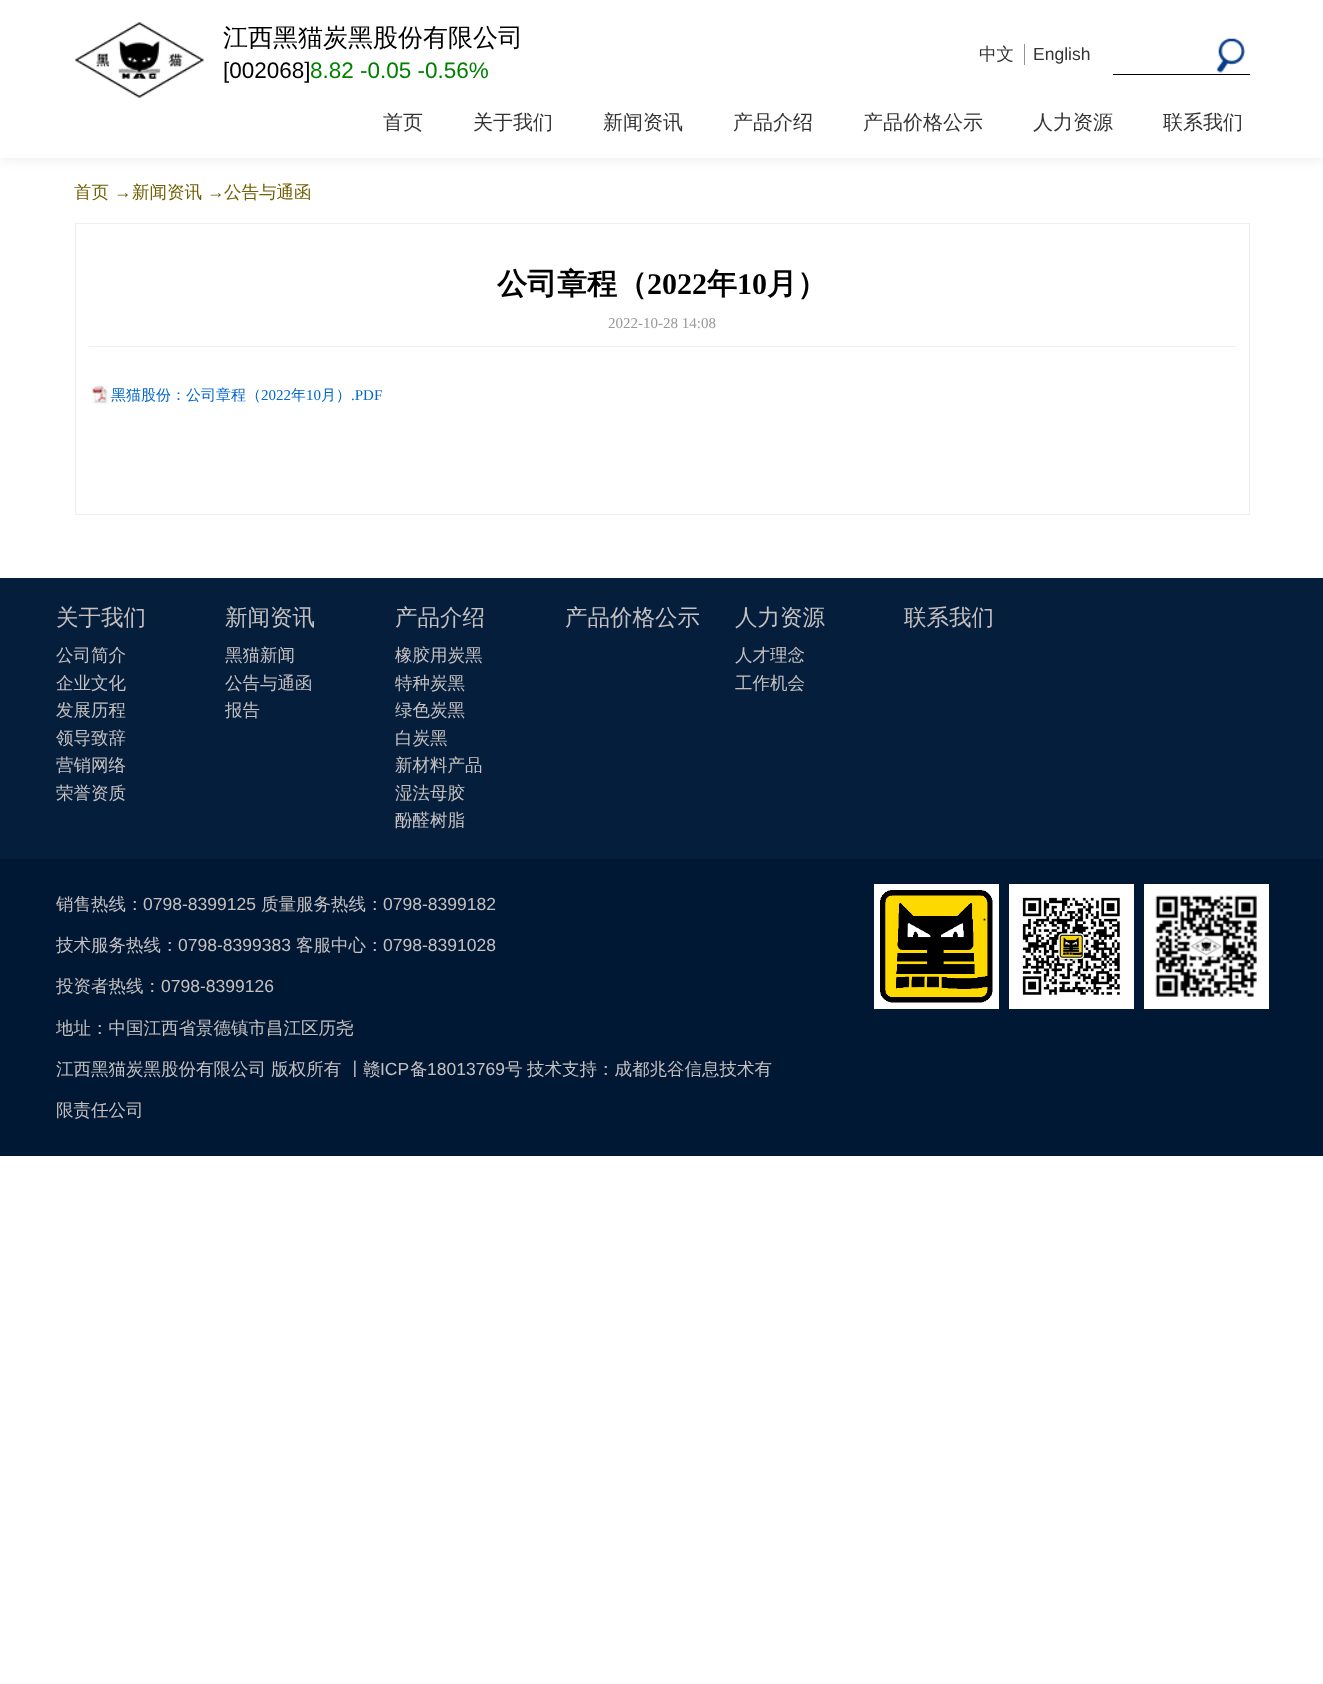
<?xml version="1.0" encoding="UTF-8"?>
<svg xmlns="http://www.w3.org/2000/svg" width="1323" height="1684">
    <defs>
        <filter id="blur1" x="-50%" y="-200%" width="200%" height="500%"><feGaussianBlur stdDeviation="6"/></filter>
    </defs>
    <rect width="100%" height="100%" fill="#FFFFFF"/>
    <rect x="0" y="3" width="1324" height="157" fill="#EEEEEE" filter="url(#blur1)"/>
    <rect x="0" y="0" width="1323" height="158" fill="#FFFFFF"/>
    <image x="74" y="22" width="130" height="76" href="img_01.png"/>
    <text x="223" y="46" font-family="WenQuanYi Zen Hei" font-size="25" font-weight="500" fill="#000000">江西黑猫炭黑股份有限公司</text>
    <text x="223" y="78" font-family="Liberation Sans" font-size="22.5" fill="#000000">[002068]</text>
    <text x="310" y="78" font-family="Liberation Sans" font-size="22.5" fill="#008000">8.82 -0.05 -0.56%</text>
    <text x="979" y="60" font-family="WenQuanYi Zen Hei" font-size="17.5" font-weight="500" fill="#333333">中文</text>
    <rect x="1024" y="44" width="1" height="21" fill="#939393"/>
    <text x="1033" y="60" font-family="Liberation Sans" font-size="17.5" fill="#333333">English</text>
    <rect x="1113" y="74" width="137" height="1" fill="#000000"/>
    <image x="1216" y="38" width="30" height="35" href="img_02.png"/>
    <text x="383" y="129" font-family="WenQuanYi Zen Hei" font-size="20" font-weight="500" fill="#333333">首页</text>
    <text x="473" y="129" font-family="WenQuanYi Zen Hei" font-size="20" font-weight="500" fill="#333333">关于我们</text>
    <text x="603" y="129" font-family="WenQuanYi Zen Hei" font-size="20" font-weight="500" fill="#333333">新闻资讯</text>
    <text x="733" y="129" font-family="WenQuanYi Zen Hei" font-size="20" font-weight="500" fill="#333333">产品介绍</text>
    <text x="863" y="129" font-family="WenQuanYi Zen Hei" font-size="20" font-weight="500" fill="#333333">产品价格公示</text>
    <text x="1033" y="129" font-family="WenQuanYi Zen Hei" font-size="20" font-weight="500" fill="#333333">人力资源</text>
    <text x="1163" y="129" font-family="WenQuanYi Zen Hei" font-size="20" font-weight="500" fill="#333333">联系我们</text>
    <text x="74" y="198" font-family="WenQuanYi Zen Hei" font-size="17.5" font-weight="500" fill="#6F5F02">首页</text>
    <text x="114" y="198" font-family="Liberation Sans" font-size="17.5" fill="#6F5F02">→</text>
    <text x="132" y="198" font-family="WenQuanYi Zen Hei" font-size="17.5" font-weight="500" fill="#6F5F02">新闻资讯</text>
    <text x="207" y="198" font-family="Liberation Sans" font-size="17.5" fill="#6F5F02">→</text>
    <text x="224" y="198" font-family="WenQuanYi Zen Hei" font-size="17.5" font-weight="500" fill="#6F5F02">公告与通函</text>
    <rect x="75.5" y="223.5" width="1174" height="291" fill="none" stroke="#EEEEEE"/>
    <text x="497" y="294" font-family="WenQuanYi Zen Hei" font-size="30" font-weight="700" fill="#000000">公司章程（</text>
    <text x="647" y="294" font-family="Liberation Serif" font-size="30" font-weight="700" fill="#000000">2022</text>
    <text x="707" y="294" font-family="WenQuanYi Zen Hei" font-size="30" font-weight="700" fill="#000000">年</text>
    <text x="737" y="294" font-family="Liberation Serif" font-size="30" font-weight="700" fill="#000000">10</text>
    <text x="767" y="294" font-family="WenQuanYi Zen Hei" font-size="30" font-weight="700" fill="#000000">月）</text>
    <rect x="89" y="346" width="1147" height="1" fill="#EEEEEE"/>
    <text x="608" y="328" font-family="Liberation Serif" font-size="15" fill="#999999">2022-10-28 14:08</text>
    <image x="92" y="385" width="16" height="19" href="img_03.png"/>
    <text x="111" y="400" font-family="WenQuanYi Zen Hei" font-size="15" font-weight="500" fill="#0066CC">黑猫股份：公司章程（</text>
    <text x="261" y="400" font-family="Liberation Serif" font-size="15" fill="#0066CC">2022</text>
    <text x="291" y="400" font-family="WenQuanYi Zen Hei" font-size="15" font-weight="500" fill="#0066CC">年</text>
    <text x="306" y="400" font-family="Liberation Serif" font-size="15" fill="#0066CC">10</text>
    <text x="321" y="400" font-family="WenQuanYi Zen Hei" font-size="15" font-weight="500" fill="#0066CC">月）</text>
    <text x="351" y="400" font-family="Liberation Serif" font-size="15" fill="#0066CC">.PDF</text>
    <rect x="0" y="578" width="1323" height="281" fill="#051E3C"/>
    <text x="56" y="625" font-family="WenQuanYi Zen Hei" font-size="22.5" font-weight="500" fill="#C5C1C1">关于我们</text>
    <text font-family="WenQuanYi Zen Hei" font-size="17.5" font-weight="500" fill="#C5C1C1">
        <tspan x="56" y="661">公司简介</tspan>
        <tspan x="56" y="689">企业文化</tspan>
        <tspan x="56" y="716">发展历程</tspan>
        <tspan x="56" y="744">领导致辞</tspan>
        <tspan x="56" y="771">营销网络</tspan>
        <tspan x="56" y="799">荣誉资质</tspan>
    </text>
    <text x="225" y="625" font-family="WenQuanYi Zen Hei" font-size="22.5" font-weight="500" fill="#C5C1C1">新闻资讯</text>
    <text font-family="WenQuanYi Zen Hei" font-size="17.5" font-weight="500" fill="#C5C1C1">
        <tspan x="225" y="661">黑猫新闻</tspan>
        <tspan x="225" y="689">公告与通函</tspan>
        <tspan x="225" y="716">报告</tspan>
    </text>
    <text x="395" y="625" font-family="WenQuanYi Zen Hei" font-size="22.5" font-weight="500" fill="#C5C1C1">产品介绍</text>
    <text font-family="WenQuanYi Zen Hei" font-size="17.5" font-weight="500" fill="#C5C1C1">
        <tspan x="395" y="661">橡胶用炭黑</tspan>
        <tspan x="395" y="689">特种炭黑</tspan>
        <tspan x="395" y="716">绿色炭黑</tspan>
        <tspan x="395" y="744">白炭黑</tspan>
        <tspan x="395" y="771">新材料产品</tspan>
        <tspan x="395" y="799">湿法母胶</tspan>
        <tspan x="395" y="826">酚醛树脂</tspan>
    </text>
    <text x="565" y="625" font-family="WenQuanYi Zen Hei" font-size="22.5" font-weight="500" fill="#C5C1C1">产品价格公示</text>
    <text x="735" y="625" font-family="WenQuanYi Zen Hei" font-size="22.5" font-weight="500" fill="#C5C1C1">人力资源</text>
    <text font-family="WenQuanYi Zen Hei" font-size="17.5" font-weight="500" fill="#C5C1C1">
        <tspan x="735" y="661">人才理念</tspan>
        <tspan x="735" y="689">工作机会</tspan>
    </text>
    <text x="904" y="625" font-family="WenQuanYi Zen Hei" font-size="22.5" font-weight="500" fill="#C5C1C1">联系我们</text>
    <rect x="0" y="859" width="1323" height="297" fill="#001834"/>
    <text x="56" y="910" font-family="WenQuanYi Zen Hei" font-size="17.5" font-weight="500" fill="#C5C1C1">销售热线：</text>
    <text x="143" y="910" font-family="Liberation Sans" font-size="17.5" fill="#C5C1C1">0798-8399125</text>
    <text x="261" y="910" font-family="WenQuanYi Zen Hei" font-size="17.5" font-weight="500" fill="#C5C1C1">质量服务热线：</text>
    <text x="383" y="910" font-family="Liberation Sans" font-size="17.5" fill="#C5C1C1">0798-8399182</text>
    <text x="56" y="951" font-family="WenQuanYi Zen Hei" font-size="17.5" font-weight="500" fill="#C5C1C1">技术服务热线：</text>
    <text x="178" y="951" font-family="Liberation Sans" font-size="17.5" fill="#C5C1C1">0798-8399383</text>
    <text x="296" y="951" font-family="WenQuanYi Zen Hei" font-size="17.5" font-weight="500" fill="#C5C1C1">客服中心：</text>
    <text x="383" y="951" font-family="Liberation Sans" font-size="17.5" fill="#C5C1C1">0798-8391028</text>
    <text x="56" y="992" font-family="WenQuanYi Zen Hei" font-size="17.5" font-weight="500" fill="#C5C1C1">投资者热线：</text>
    <text x="161" y="992" font-family="Liberation Sans" font-size="17.5" fill="#C5C1C1">0798-8399126</text>
    <text x="56" y="1034" font-family="WenQuanYi Zen Hei" font-size="17.5" font-weight="500" fill="#C5C1C1">地址：中国江西省景德镇市昌江区历尧</text>
    <text x="56" y="1075" font-family="WenQuanYi Zen Hei" font-size="17.5" font-weight="500" fill="#C5C1C1">江西黑猫炭黑股份有限公司 版权所有 丨</text>
    <text x="363" y="1075" font-family="WenQuanYi Zen Hei" font-size="17.5" font-weight="500" fill="#C5C1C1">赣</text>
    <text x="380" y="1075" font-family="Liberation Sans" font-size="17.5" fill="#C5C1C1">ICP</text>
    <text x="410" y="1075" font-family="WenQuanYi Zen Hei" font-size="17.5" font-weight="500" fill="#C5C1C1">备</text>
    <text x="427" y="1075" font-family="Liberation Sans" font-size="17.5" fill="#C5C1C1">18013769</text>
    <text x="505" y="1075" font-family="WenQuanYi Zen Hei" font-size="17.5" font-weight="500" fill="#C5C1C1">号</text>
    <text x="527" y="1075" font-family="WenQuanYi Zen Hei" font-size="17.5" font-weight="500" fill="#C5C1C1">技术支持：成都兆谷信息技术有</text>
    <text x="56" y="1116" font-family="WenQuanYi Zen Hei" font-size="17.5" font-weight="500" fill="#C5C1C1">限责任公司</text>
    <rect x="874" y="884" width="125" height="125" fill="#FFFFFF"/>
    <image x="880" y="890" width="113" height="113" href="img_04.png"/>
    <rect x="1009" y="884" width="125" height="125" fill="#FFFFFF"/>
    <image x="1020" y="897" width="102" height="99" href="img_05.png"/>
    <rect x="1144" y="884" width="125" height="125" fill="#FFFFFF"/>
    <image x="1155" y="895" width="102" height="102" href="img_06.png"/>
</svg>
